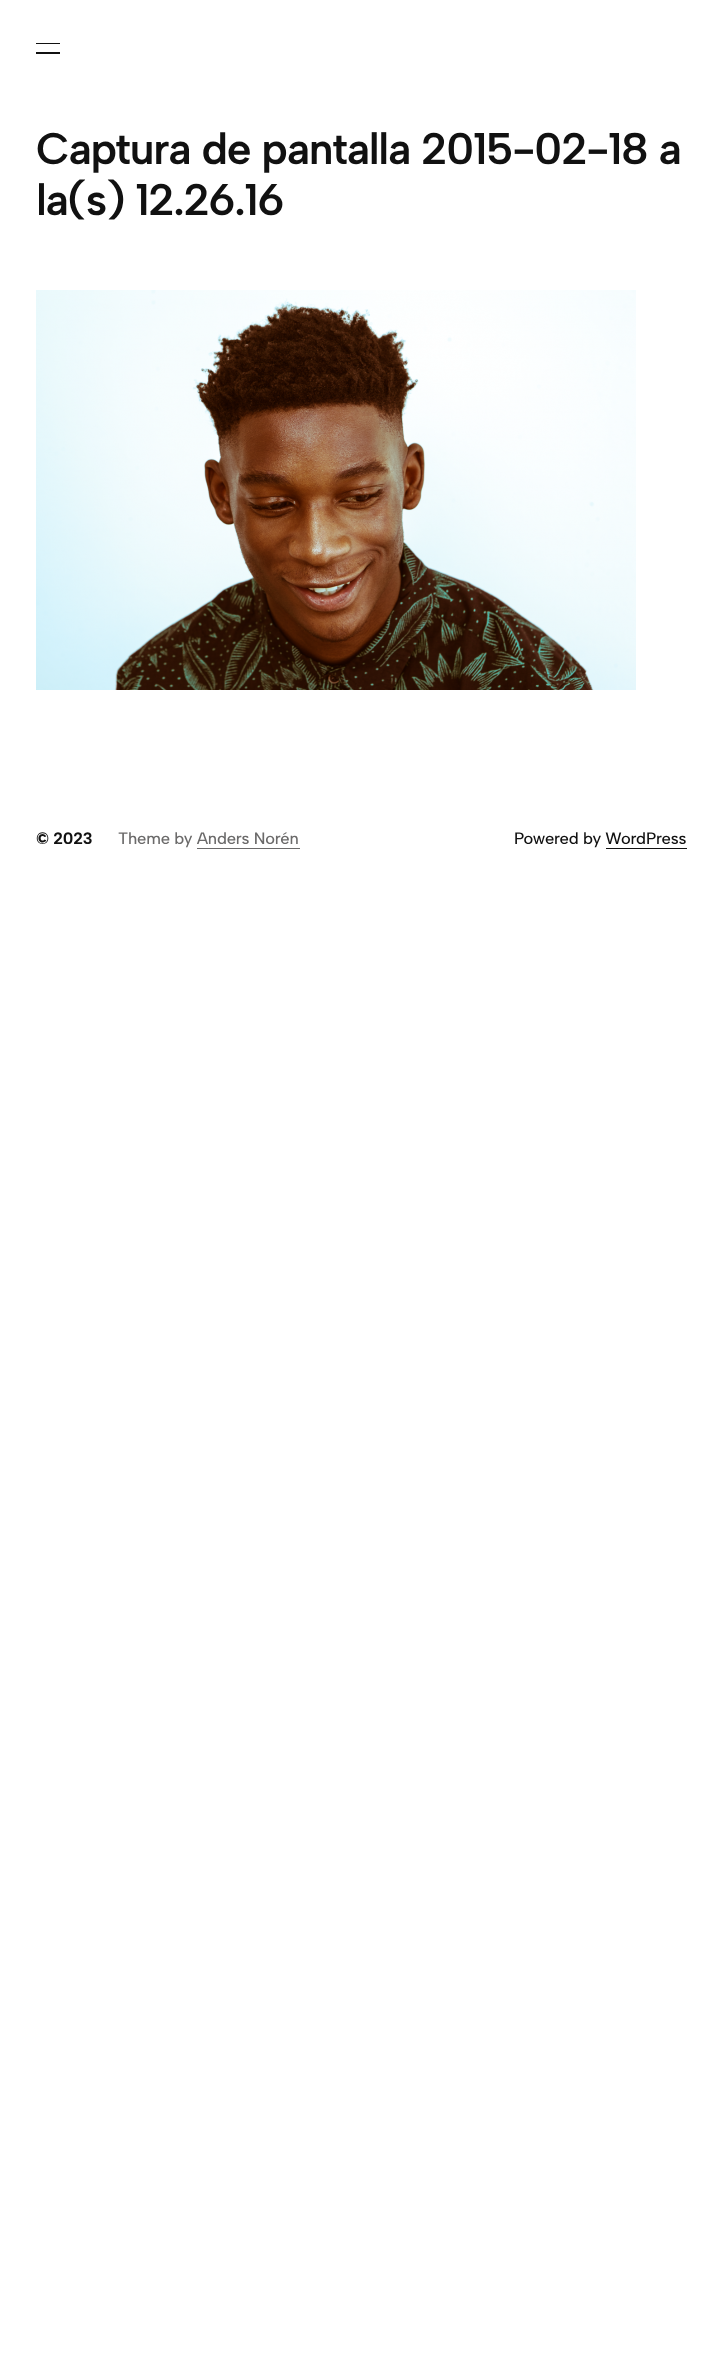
<?xml version="1.0" encoding="UTF-8"?>
<svg xmlns="http://www.w3.org/2000/svg" width="723" height="2371">
    <rect width="100%" height="100%" fill="#FFFFFF"/>
    <rect x="36" y="43" width="24" height="1" fill="#111111"/>
    <rect x="36" y="52" width="24" height="2" fill="#111111"/>
    <text font-family="Albert Sans" font-size="44.25" font-weight="600" letter-spacing="-1.3" fill="#111111">
        <tspan x="36" y="164">Captura de pantalla 2015-02-18 a</tspan>
        <tspan x="36" y="215">la(s) 12.26.16</tspan>
    </text>
    <image x="36" y="290" width="600" height="400" href="img_01.png"/>
    <text x="36" y="844" font-family="Albert Sans" font-size="16.5" font-weight="700" letter-spacing="-0.2" fill="#111111">© 2023</text>
    <text x="118" y="844" font-family="Albert Sans" font-size="16.5" font-weight="500" letter-spacing="-0.2" fill="#6B6A6A">Theme by Anders Norén</text>
    <rect x="197" y="848" width="103" height="1" fill="#6B6A6A"/>
    <text x="514" y="844" font-family="Albert Sans" font-size="16.5" font-weight="500" letter-spacing="-0.2" fill="#111111">Powered by WordPress</text>
    <rect x="606" y="848" width="81" height="1" fill="#111111"/>
</svg>
